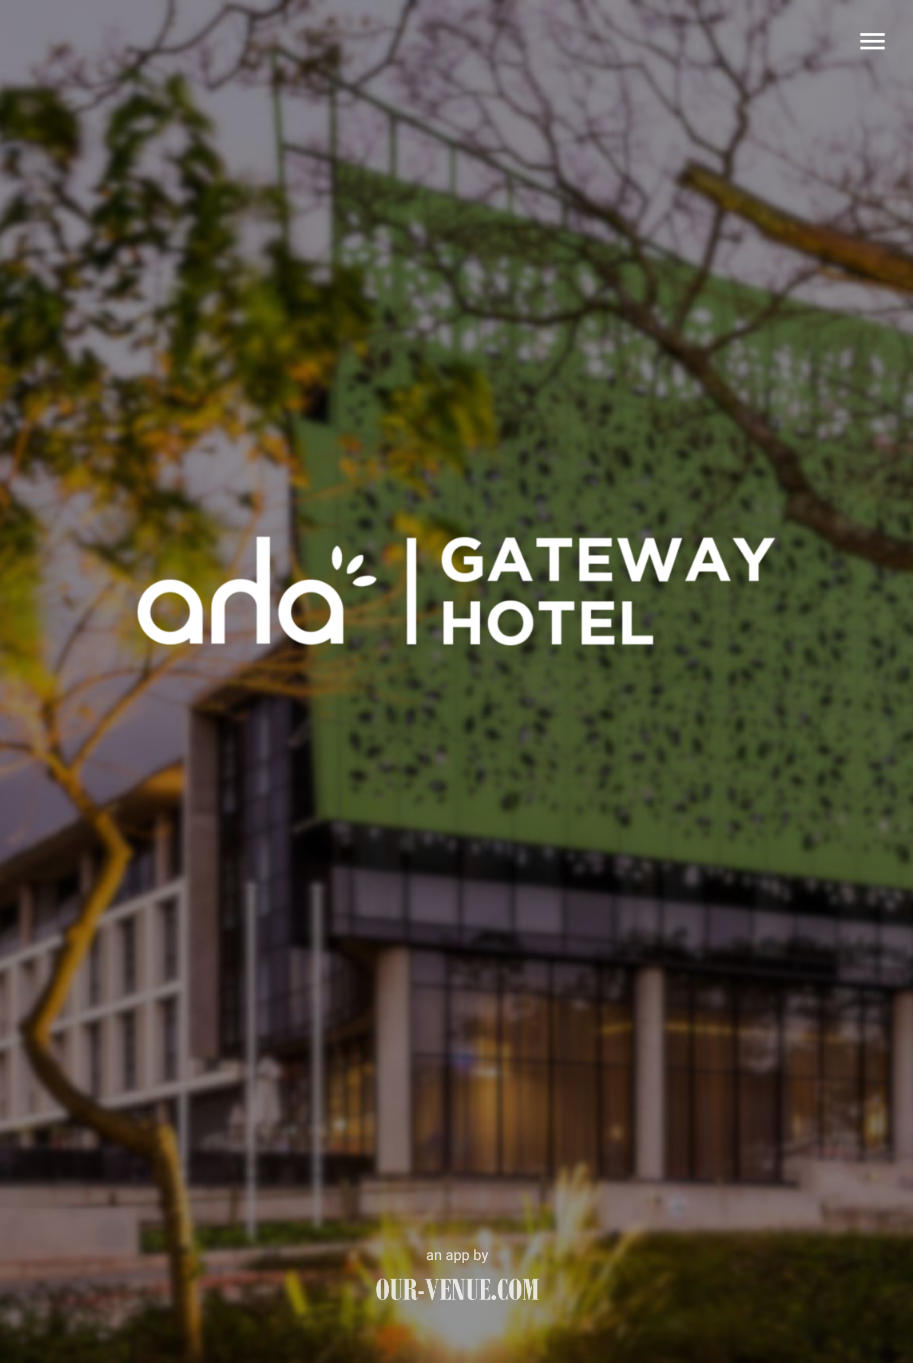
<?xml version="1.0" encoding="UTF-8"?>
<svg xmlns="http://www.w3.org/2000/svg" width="913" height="1363">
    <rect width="100%" height="100%" fill="#FFFFFF"/>
    <image x="0" y="0" width="913" height="1363" href="img_01.png"/>
    <image x="860" y="33" width="25" height="17" href="img_02.png"/>
    <image x="137" y="536" width="639" height="110" href="img_03.png"/>
    <text x="426" y="1260" font-family="Heebo" font-size="14.5" fill="#E8E5DD">an app by</text>
    <image x="376" y="1278" width="163" height="22" href="img_04.png"/>
</svg>
